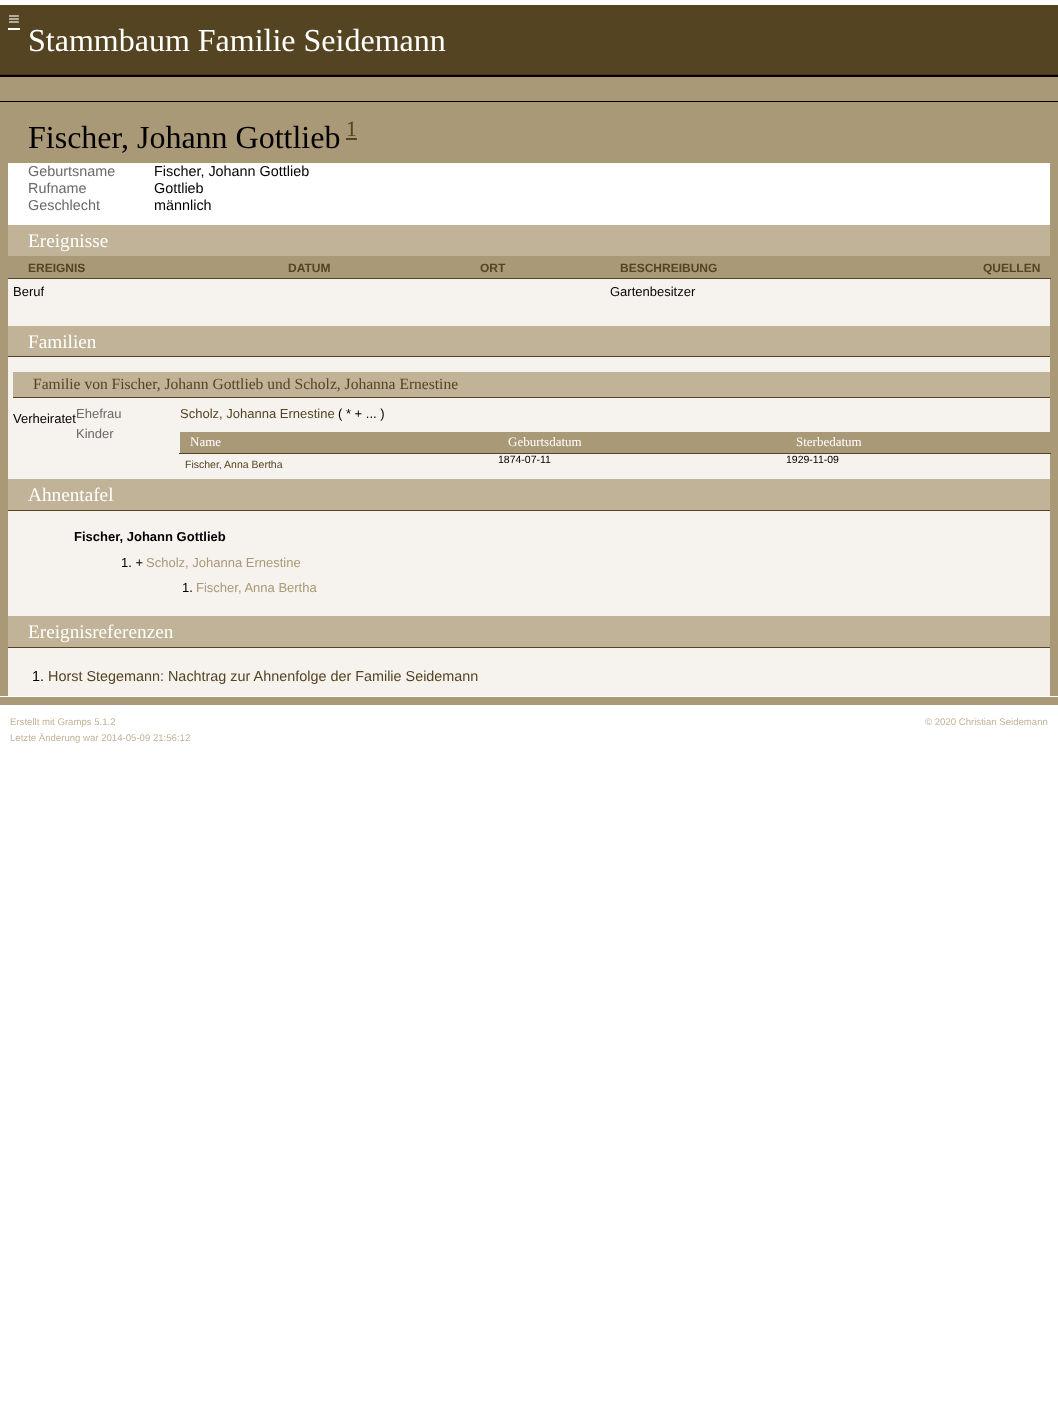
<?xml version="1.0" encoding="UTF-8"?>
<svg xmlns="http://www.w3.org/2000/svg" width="1058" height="1413">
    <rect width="100%" height="100%" fill="#FFFFFF"/>
    <rect x="0" y="5" width="1058" height="69" fill="#554422"/>
    <rect x="0" y="74" width="1058" height="1" fill="#453619"/>
    <text x="8" y="26" font-family="Liberation Serif" font-size="21" fill="#FFFFFF">≡</text>
    <rect x="8" y="28" width="12" height="2" fill="#FFFFFF"/>
    <text x="28" y="51" font-family="Liberation Serif" font-size="32" fill="#FFFFFF">Stammbaum Familie Seidemann</text>
    <rect x="0" y="77" width="1058" height="24" fill="#AA9977"/>
    <rect x="0" y="75" width="1058" height="2" fill="#000000"/>
    <rect x="0" y="101" width="1058" height="1" fill="#000000"/>
    <rect x="0" y="102" width="1058" height="594" fill="#AA9977"/>
    <text x="28" y="148" font-family="Liberation Serif" font-size="32" fill="#000000">Fischer, Johann Gottlieb</text>
    <text x="346" y="136" font-family="Liberation Serif" font-size="22" fill="#554422">1</text>
    <rect x="346" y="138" width="11" height="2" fill="#554422"/>
    <rect x="8" y="163" width="1042" height="62" fill="#FFFFFF"/>
    <text x="28" y="176" font-family="Liberation Sans" font-size="14.4" fill="#696969">Geburtsname</text>
    <text x="154" y="176" font-family="Liberation Sans" font-size="14.4" fill="#000000">Fischer, Johann Gottlieb</text>
    <text x="28" y="193" font-family="Liberation Sans" font-size="14.4" fill="#696969">Rufname</text>
    <text x="154" y="193" font-family="Liberation Sans" font-size="14.4" fill="#000000">Gottlieb</text>
    <text x="28" y="210" font-family="Liberation Sans" font-size="14.4" fill="#696969">Geschlecht</text>
    <text x="154" y="210" font-family="Liberation Sans" font-size="14.4" fill="#000000">männlich</text>
    <rect x="8" y="279" width="1042" height="47" fill="#F6F2EE"/>
    <rect x="8" y="225" width="1042" height="31" fill="#C1B398"/>
    <text x="28" y="247" font-family="Liberation Serif" font-size="19.25" fill="#FFFFFF">Ereignisse</text>
    <text x="28" y="272" font-family="Liberation Sans" font-size="12" font-weight="700" fill="#554422">EREIGNIS</text>
    <text x="288" y="272" font-family="Liberation Sans" font-size="12" font-weight="700" fill="#554422">DATUM</text>
    <text x="480" y="272" font-family="Liberation Sans" font-size="12" font-weight="700" fill="#554422">ORT</text>
    <text x="620" y="272" font-family="Liberation Sans" font-size="12" font-weight="700" fill="#554422">BESCHREIBUNG</text>
    <rect x="8" y="278" width="1043" height="1" fill="#554422"/>
    <text x="983" y="272" font-family="Liberation Sans" font-size="12" font-weight="700" fill="#554422">QUELLEN</text>
    <text x="13" y="296" font-family="Liberation Sans" font-size="13" fill="#000000">Beruf</text>
    <text x="610" y="296" font-family="Liberation Sans" font-size="13" fill="#000000">Gartenbesitzer</text>
    <rect x="8" y="357" width="1042" height="122" fill="#F6F2EE"/>
    <rect x="8" y="326" width="1042" height="30" fill="#C1B398"/>
    <rect x="8" y="356" width="1042" height="1" fill="#554422"/>
    <text x="28" y="348" font-family="Liberation Serif" font-size="19.25" fill="#FFFFFF">Familien</text>
    <rect x="13" y="372" width="1037" height="25" fill="#C1B398"/>
    <rect x="13" y="397" width="1037" height="1" fill="#554422"/>
    <text x="33" y="389" font-family="Liberation Serif" font-size="15.55" fill="#554422">Familie von Fischer, Johann Gottlieb und Scholz, Johanna Ernestine</text>
    <text x="13" y="423" font-family="Liberation Sans" font-size="13" fill="#000000">Verheiratet</text>
    <text x="76" y="418" font-family="Liberation Sans" font-size="13" fill="#696969">Ehefrau</text>
    <text x="180" y="418" font-family="Liberation Sans" font-size="13" fill="#554422">Scholz, Johanna Ernestine</text>
    <text x="338" y="418" font-family="Liberation Sans" font-size="13" fill="#000000">( * + ... )</text>
    <text x="76" y="438" font-family="Liberation Sans" font-size="13" fill="#696969">Kinder</text>
    <rect x="180" y="432" width="870" height="21" fill="#AA9977"/>
    <text x="190" y="446" font-family="Liberation Serif" font-size="13" fill="#FFFFFF">Name</text>
    <text x="508" y="446" font-family="Liberation Serif" font-size="13" fill="#FFFFFF">Geburtsdatum</text>
    <rect x="179" y="453" width="872" height="1" fill="#554422"/>
    <text x="796" y="446" font-family="Liberation Serif" font-size="13" fill="#FFFFFF">Sterbedatum</text>
    <text x="185" y="468" font-family="Liberation Sans" font-size="10.5" fill="#554422">Fischer, Anna Bertha</text>
    <text x="498" y="463" font-family="Liberation Sans" font-size="10.5" fill="#000000">1874-07-11</text>
    <text x="786" y="463" font-family="Liberation Sans" font-size="10.5" fill="#000000">1929-11-09</text>
    <rect x="8" y="511" width="1042" height="105" fill="#F6F2EE"/>
    <rect x="8" y="479" width="1042" height="31" fill="#C1B398"/>
    <rect x="8" y="510" width="1042" height="1" fill="#554422"/>
    <text x="28" y="501" font-family="Liberation Serif" font-size="19.25" fill="#FFFFFF">Ahnentafel</text>
    <text x="74" y="541" font-family="Liberation Sans" font-size="13" font-weight="700" fill="#000000">Fischer, Johann Gottlieb</text>
    <text x="121" y="567" font-family="Liberation Sans" font-size="13" fill="#000000">1. +</text>
    <text x="146" y="567" font-family="Liberation Sans" font-size="13" fill="#AA9977">Scholz, Johanna Ernestine</text>
    <text x="182" y="592" font-family="Liberation Sans" font-size="13" fill="#000000">1.</text>
    <text x="196" y="592" font-family="Liberation Sans" font-size="13" fill="#AA9977">Fischer, Anna Bertha</text>
    <rect x="8" y="648" width="1042" height="48" fill="#F6F2EE"/>
    <rect x="8" y="616" width="1042" height="31" fill="#C1B398"/>
    <rect x="8" y="647" width="1042" height="1" fill="#554422"/>
    <text x="28" y="638" font-family="Liberation Serif" font-size="19.25" fill="#FFFFFF">Ereignisreferenzen</text>
    <text x="32" y="681" font-family="Liberation Sans" font-size="14.4" fill="#000000">1.</text>
    <text x="48" y="681" font-family="Liberation Sans" font-size="14.4" fill="#554422">Horst Stegemann: Nachtrag zur Ahnenfolge der Familie Seidemann</text>
    <rect x="0" y="697" width="1058" height="8" fill="#AA9977"/>
    <text font-family="Liberation Sans" font-size="9.6" fill="#C1B398">
        <tspan x="10" y="725">Erstellt mit Gramps 5.1.2</tspan>
        <tspan x="10" y="741">Letzte Änderung war 2014-05-09 21:56:12</tspan>
    </text>
    <text x="925" y="725" font-family="Liberation Sans" font-size="9.6" fill="#C1B398">© 2020 Christian Seidemann</text>
</svg>
